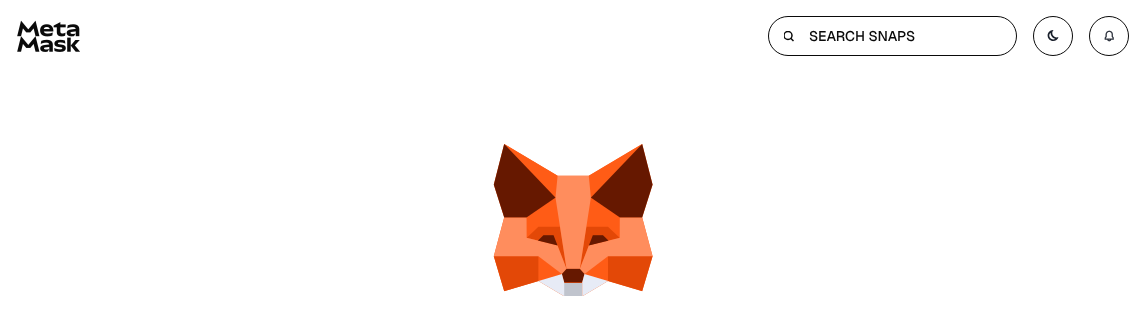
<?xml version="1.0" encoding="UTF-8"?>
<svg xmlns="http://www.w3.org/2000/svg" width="1145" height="322">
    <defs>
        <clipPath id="clip1"><rect x="784" y="31" width="10" height="10"/></clipPath>
    </defs>
    <rect width="100%" height="100%" fill="#FFFFFF"/>
    <image x="17" y="20" width="63" height="32" href="img_01.png"/>
    <rect x="768.5" y="16.5" width="248" height="39" rx="19.5" fill="none" stroke="#0A0A0A"/>
    <g clip-path="url(#clip1)">
        <circle cx="788" cy="35.5" r="4" fill="none" stroke="#0A0A0A" stroke-width="1.5"/>
    </g>
    <path d="M 790.5 38 L 793.5 41" fill="none" stroke="#0A0A0A" stroke-width="1.5"/>
    <text x="809" y="41" font-family="Geist" font-size="14" font-weight="500" fill="#0A0A0A">SEARCH SNAPS</text>
    <circle cx="1053" cy="36" r="19.5" fill="none" stroke="#0A0A0A"/>
    <image x="1047" y="30" width="12" height="11" href="img_02.png"/>
    <circle cx="1109" cy="36" r="19.5" fill="none" stroke="#0A0A0A"/>
    <image x="1104" y="30" width="10" height="12" href="img_03.png"/>
    <image x="493" y="144" width="160" height="152" href="img_04.png"/>
</svg>
